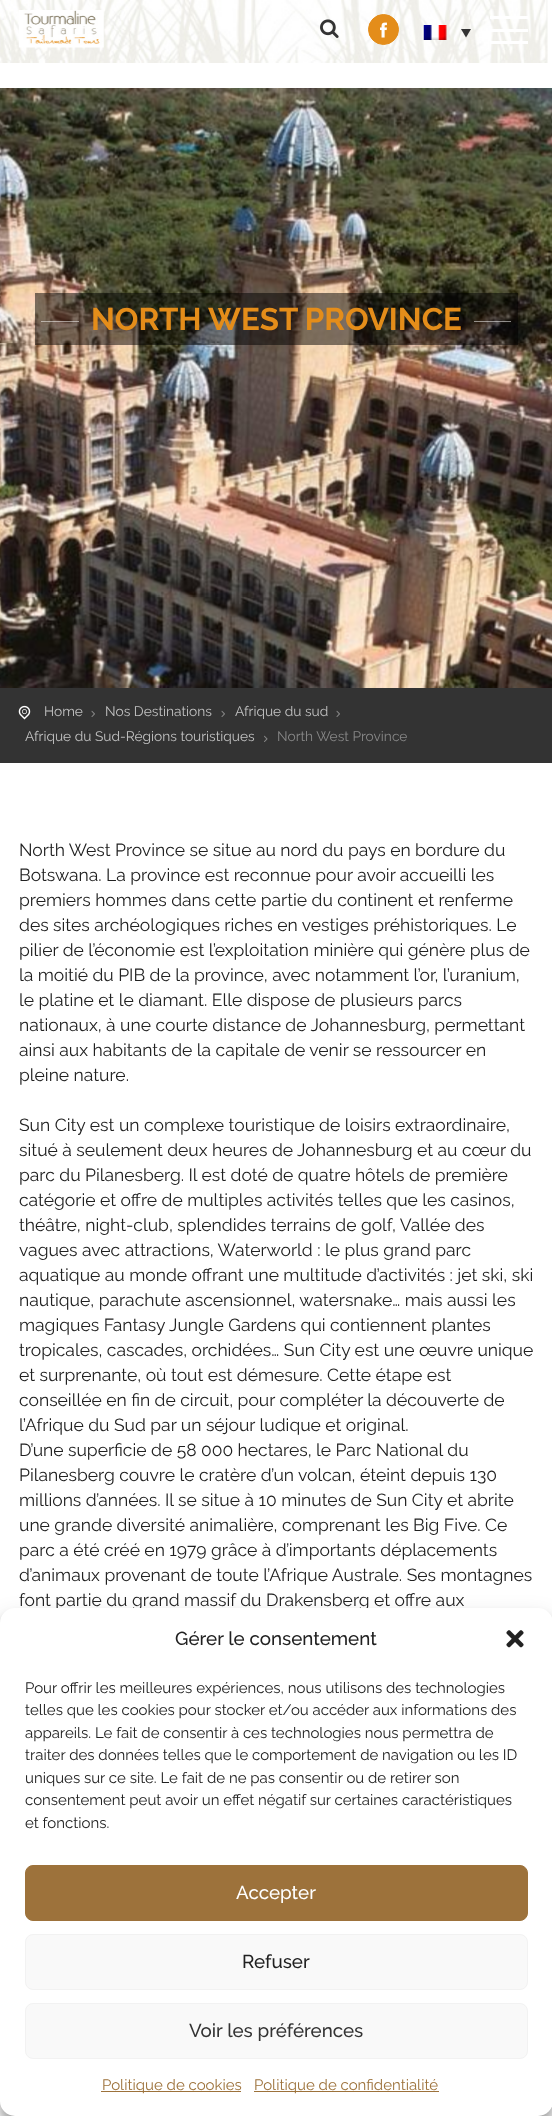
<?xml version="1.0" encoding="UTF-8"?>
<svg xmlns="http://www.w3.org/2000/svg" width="552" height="2116">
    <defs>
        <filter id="blur1" x="-50%" y="-200%" width="200%" height="500%"><feGaussianBlur stdDeviation="4"/></filter>
        <filter id="blur2" x="-50%" y="-200%" width="200%" height="500%"><feGaussianBlur stdDeviation="12.5"/></filter>
    </defs>
    <rect width="100%" height="100%" fill="#FFFFFF"/>
    <image x="0" y="0" width="548" height="63" href="img_01.png"/>
    <image x="18" y="10" width="86" height="38" href="img_02.png"/>
    <image x="320" y="19" width="19" height="19" href="img_03.png"/>
    <circle cx="383.5" cy="29.5" r="15" fill="#E48D1A" stroke="#E48D1A"/>
    <image x="380" y="22" width="7" height="16" href="img_04.png"/>
    <image x="423" y="25" width="24" height="15" href="img_05.png"/>
    <path d="M 461 29 H 471 L 466 37.5 Z" fill="#333333"/>
    <rect x="490" y="29" width="38" height="3" fill="#FFFFFF"/>
    <rect x="490" y="16" width="38" height="3" fill="#FFFFFF"/>
    <rect x="490" y="41" width="38" height="3" fill="#FFFFFF"/>
    <image x="0" y="88" width="552" height="600" href="img_06.png"/>
    <rect x="35" y="293" width="483" height="52" fill="#000000" fill-opacity="0.5"/>
    <rect x="41" y="321" width="38" height="1" fill="#FFFFFF" fill-opacity="0.5"/>
    <text x="91" y="330" font-family="Raleway" font-size="31.25" font-weight="700" fill="#E48D1A">NORTH WEST PROVINCE</text>
    <rect x="474" y="321" width="37" height="1" fill="#FFFFFF" fill-opacity="0.5"/>
    <rect x="0" y="688" width="552" height="75" fill="#333333"/>
    <image x="18" y="705" width="13" height="15" href="img_07.png"/>
    <text x="44" y="716" font-family="Raleway" font-size="13.75" fill="#C2C2C2">Home</text>
    <image x="91" y="710" width="4" height="7" href="img_08.png"/>
    <text x="105" y="716" font-family="Raleway" font-size="13.75" fill="#C2C2C2">Nos Destinations</text>
    <image x="221" y="710" width="4" height="7" href="img_08.png"/>
    <text x="235" y="716" font-family="Raleway" font-size="13.75" fill="#C2C2C2">Afrique du sud</text>
    <image x="336" y="710" width="4" height="7" href="img_08.png"/>
    <text x="25" y="741" font-family="Raleway" font-size="13.75" fill="#C2C2C2">Afrique du Sud-Régions touristiques</text>
    <image x="264" y="735" width="4" height="7" href="img_09.png"/>
    <text x="277" y="741" font-family="Raleway" font-size="13.75" fill="#888888">North West Province</text>
    <text font-family="Raleway" font-size="17.5" fill="#212121">
        <tspan x="19" y="856">North West Province se situe au nord du pays en bordure du</tspan>
        <tspan x="19" y="881">Botswana. La province est reconnue pour avoir accueilli les</tspan>
        <tspan x="19" y="906">premiers hommes dans cette partie du continent et renferme</tspan>
        <tspan x="19" y="931">des sites archéologiques riches en vestiges préhistoriques. Le</tspan>
        <tspan x="19" y="956">pilier de l’économie est l’exploitation minière qui génère plus de</tspan>
        <tspan x="19" y="981">la moitié du PIB de la province, avec notamment l’or, l’uranium,</tspan>
        <tspan x="19" y="1006">le platine et le diamant. Elle dispose de plusieurs parcs</tspan>
        <tspan x="19" y="1031">nationaux, à une courte distance de Johannesburg, permettant</tspan>
        <tspan x="19" y="1056">ainsi aux habitants de la capitale de venir se ressourcer en</tspan>
        <tspan x="19" y="1081">pleine nature.</tspan>
    </text>
    <text font-family="Raleway" font-size="17.5" fill="#212121">
        <tspan x="19" y="1131">Sun City est un complexe touristique de loisirs extraordinaire,</tspan>
        <tspan x="19" y="1156">situé à seulement deux heures de Johannesburg et au cœur du</tspan>
        <tspan x="19" y="1181">parc du Pilanesberg. Il est doté de quatre hôtels de première</tspan>
        <tspan x="19" y="1206">catégorie et offre de multiples activités telles que les casinos,</tspan>
        <tspan x="19" y="1231">théâtre, night-club, splendides terrains de golf, Vallée des</tspan>
        <tspan x="19" y="1256">vagues avec attractions, Waterworld : le plus grand parc</tspan>
        <tspan x="19" y="1281">aquatique au monde offrant une multitude d’activités : jet ski, ski</tspan>
        <tspan x="19" y="1306">nautique, parachute ascensionnel, watersnake… mais aussi les</tspan>
        <tspan x="19" y="1331">magiques Fantasy Jungle Gardens qui contiennent plantes</tspan>
        <tspan x="19" y="1356">tropicales, cascades, orchidées… Sun City est une œuvre unique</tspan>
        <tspan x="19" y="1381">et surprenante, où tout est démesure. Cette étape est</tspan>
        <tspan x="19" y="1406">conseillée en fin de circuit, pour compléter la découverte de</tspan>
        <tspan x="19" y="1431">l’Afrique du Sud par un séjour ludique et original.</tspan>
        <tspan x="19" y="1456">D’une superficie de 58 000 hectares, le Parc National du</tspan>
        <tspan x="19" y="1481">Pilanesberg couvre le cratère d’un volcan, éteint depuis 130</tspan>
        <tspan x="19" y="1506">millions d’années. Il se situe à 10 minutes de Sun City et abrite</tspan>
        <tspan x="19" y="1531">une grande diversité animalière, comprenant les Big Five. Ce</tspan>
        <tspan x="19" y="1556">parc a été créé en 1979 grâce à d’importants déplacements</tspan>
        <tspan x="19" y="1581">d’animaux provenant de toute l’Afrique Australe. Ses montagnes</tspan>
        <tspan x="19" y="1606">font partie du grand massif du Drakensberg et offre aux</tspan>
    </text>
    <rect x="0" y="1615" width="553" height="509" rx="15" fill="#000000" fill-opacity="0.23" filter="url(#blur1)"/>
    <rect x="0" y="1620" width="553" height="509" rx="15" fill="#000000" fill-opacity="0.19" filter="url(#blur2)"/>
    <rect x="0" y="1608" width="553" height="508" rx="15" fill="#FFFFFF"/>
    <text x="175" y="1645" font-family="Raleway" font-size="18.75" font-weight="500" fill="#212121">Gérer le consentement</text>
    <image x="506" y="1630" width="18" height="18" href="img_10.png"/>
    <text font-family="Raleway" font-size="15" fill="#212121">
        <tspan x="25" y="1693">Pour offrir les meilleures expériences, nous utilisons des technologies</tspan>
        <tspan x="25" y="1715">telles que les cookies pour stocker et/ou accéder aux informations des</tspan>
        <tspan x="25" y="1738">appareils. Le fait de consentir à ces technologies nous permettra de</tspan>
        <tspan x="25" y="1760">traiter des données telles que le comportement de navigation ou les ID</tspan>
        <tspan x="25" y="1783">uniques sur ce site. Le fait de ne pas consentir ou de retirer son</tspan>
        <tspan x="25" y="1805">consentement peut avoir un effet négatif sur certaines caractéristiques</tspan>
        <tspan x="25" y="1828">et fonctions.</tspan>
    </text>
    <rect x="25.5" y="1865.5" width="502" height="55" rx="7.5" fill="#9D723B" stroke="#9D723B"/>
    <text x="236" y="1899" font-family="Raleway" font-size="18.75" font-weight="500" fill="#FFFFFF">Accepter</text>
    <rect x="25.5" y="1934.5" width="502" height="55" rx="7.5" fill="#F9F9F9" stroke="#F2F2F2"/>
    <text x="242" y="1968" font-family="Raleway" font-size="18.75" font-weight="500" fill="#212121">Refuser</text>
    <rect x="25.5" y="2003.5" width="502" height="55" rx="7.5" fill="#F9F9F9" stroke="#F2F2F2"/>
    <text x="189" y="2037" font-family="Raleway" font-size="18.75" font-weight="500" fill="#333333">Voir les préférences</text>
    <rect x="101" y="2091" width="140" height="1" fill="#9D723B"/>
    <text x="102" y="2090" font-family="Raleway" font-size="15" fill="#9D723B">Politique de cookies</text>
    <rect x="254" y="2091" width="185" height="1" fill="#9D723B"/>
    <text x="254" y="2090" font-family="Raleway" font-size="15" fill="#9D723B">Politique de confidentialité</text>
</svg>
